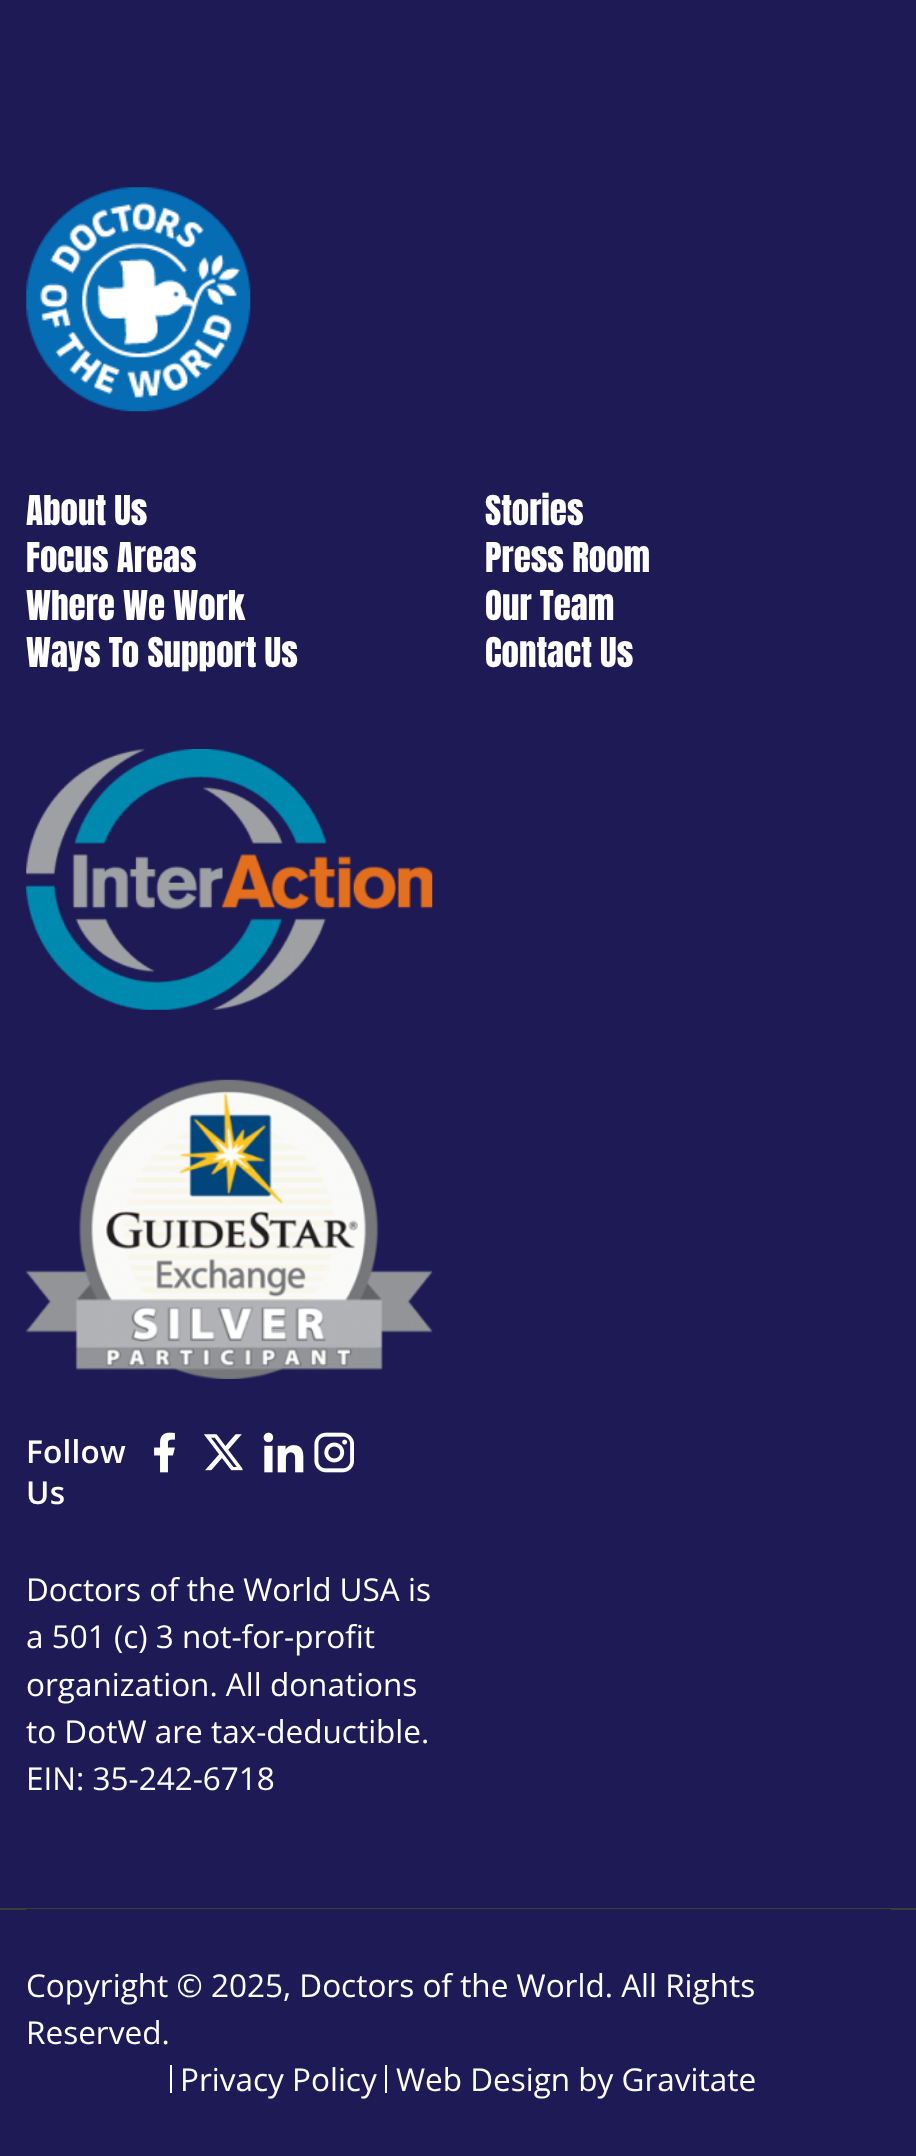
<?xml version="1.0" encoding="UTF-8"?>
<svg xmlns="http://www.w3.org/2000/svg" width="916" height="2156">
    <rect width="100%" height="100%" fill="#1D1A55"/>
    <image x="26" y="187" width="225" height="225" href="img_01.png"/>
    <text font-family="Anton" font-size="35" fill="#FFFFFF">
        <tspan x="26" y="525">About Us</tspan>
        <tspan x="26" y="572">Focus Areas</tspan>
        <tspan x="26" y="620">Where We Work</tspan>
        <tspan x="26" y="667">Ways To Support Us</tspan>
    </text>
    <text font-family="Anton" font-size="35" fill="#FFFFFF">
        <tspan x="485" y="525">Stories</tspan>
        <tspan x="485" y="572">Press Room</tspan>
        <tspan x="485" y="620">Our Team</tspan>
        <tspan x="485" y="667">Contact Us</tspan>
    </text>
    <image x="26" y="749" width="407" height="261" href="img_02.png"/>
    <image x="26" y="1079" width="407" height="300" href="img_03.png"/>
    <text font-family="Open Sans" font-size="31.5" font-weight="600" letter-spacing="0.25" fill="#FFFFFF">
        <tspan x="26" y="1463">Follow</tspan>
        <tspan x="26" y="1504">Us</tspan>
    </text>
    <image x="154" y="1432" width="21" height="41" href="img_04.png"/>
    <image x="204" y="1434" width="39" height="37" href="img_05.png"/>
    <image x="263" y="1432" width="41" height="41" href="img_06.png"/>
    <image x="314" y="1432" width="40" height="41" href="img_07.png"/>
    <text font-family="Open Sans" font-size="31.5" fill="#FFFFFF">
        <tspan x="26" y="1601">Doctors of the World USA is</tspan>
        <tspan x="26" y="1648">a 501 (c) 3 not-for-profit</tspan>
        <tspan x="26" y="1696">organization. All donations</tspan>
        <tspan x="26" y="1743">to DotW are tax-deductible.</tspan>
        <tspan x="26" y="1790">EIN: 35-242-6718</tspan>
    </text>
    <rect x="0" y="1908" width="916" height="2" fill="#3E3E36"/>
    <rect x="26" y="1909" width="865" height="1" fill="#1D1A55"/>
    <text font-family="Open Sans" font-size="31.5" fill="#FFFFFF">
        <tspan x="26" y="1997">Copyright © 2025, Doctors of the World. All Rights</tspan>
        <tspan x="26" y="2044">Reserved.</tspan>
    </text>
    <rect x="170" y="2065" width="2" height="28" fill="#FFFFFF"/>
    <text x="180" y="2091" font-family="Open Sans" font-size="31.5" fill="#FFFFFF">Privacy Policy</text>
    <rect x="385" y="2065" width="2" height="28" fill="#FFFFFF"/>
    <text x="396" y="2091" font-family="Open Sans" font-size="31.5" fill="#FFFFFF">Web Design by Gravitate</text>
</svg>
